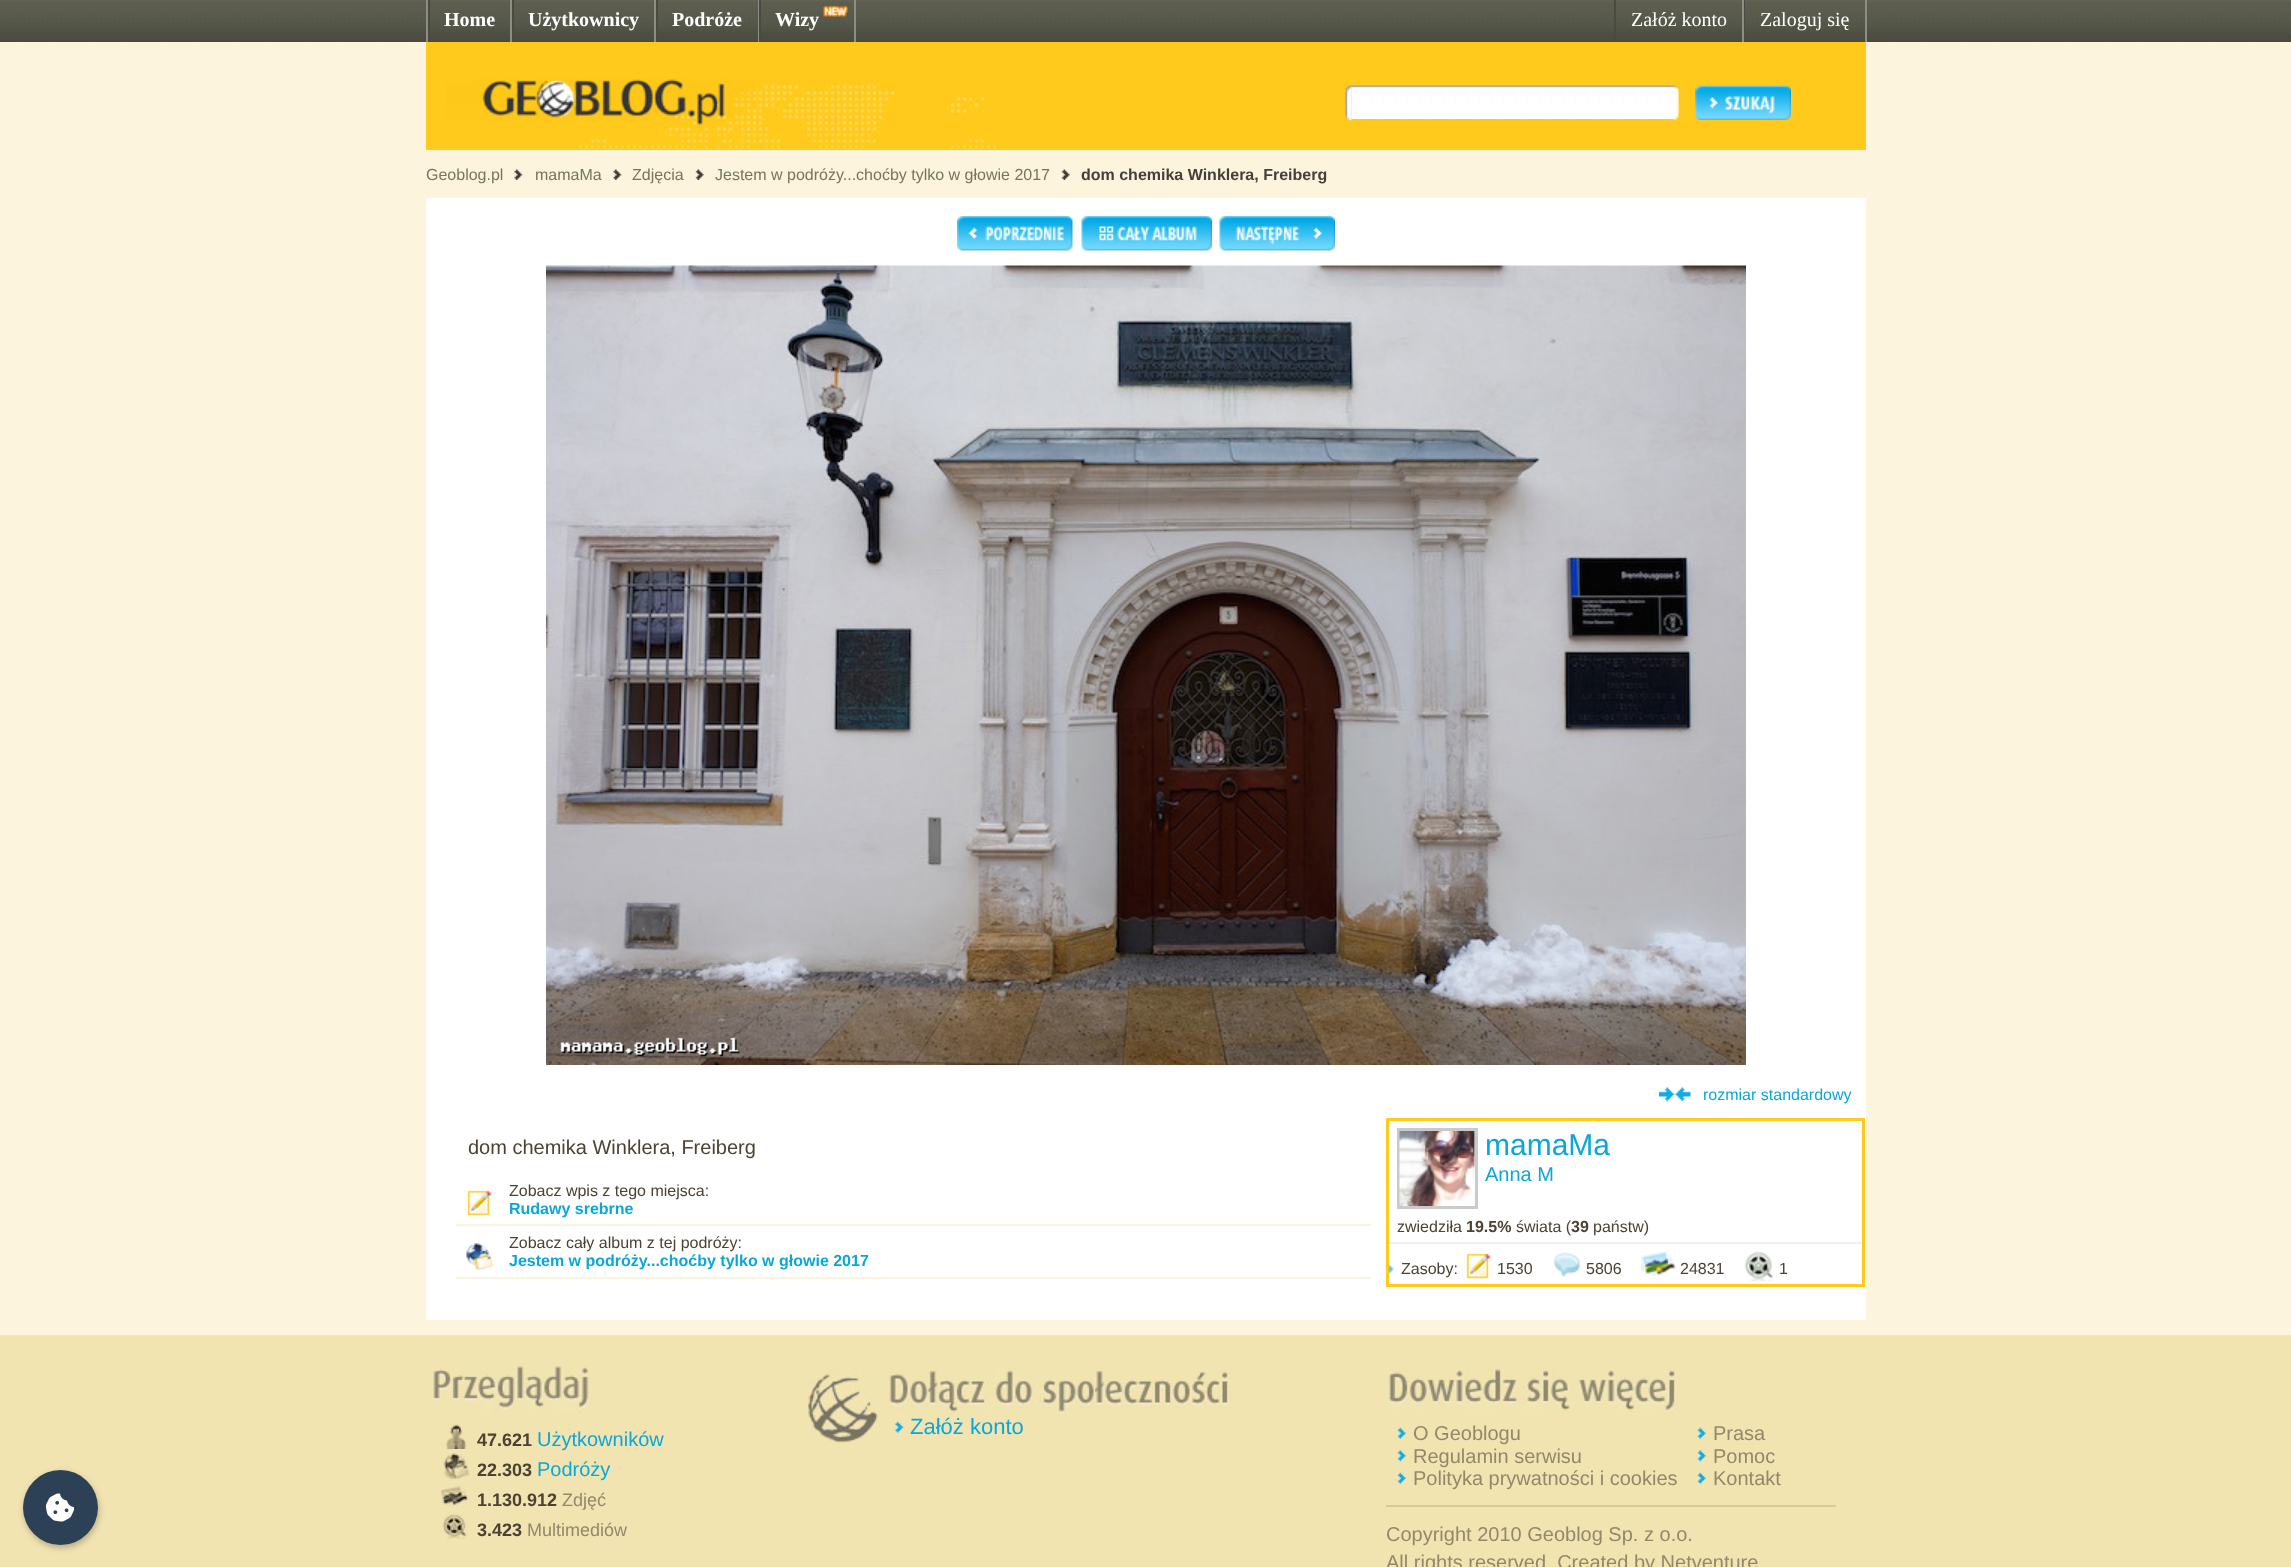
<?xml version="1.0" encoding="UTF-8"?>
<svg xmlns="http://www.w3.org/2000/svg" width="2291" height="1567">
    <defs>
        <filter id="blur1" x="-50%" y="-200%" width="200%" height="500%"><feGaussianBlur stdDeviation="3"/></filter>
    </defs>
    <rect width="100%" height="100%" fill="#FCF4DD"/>
    <image x="0" y="0" width="2291" height="42" href="img_01.png"/>
    <rect x="426" y="0" width="2" height="42" fill="#8C8D83"/>
    <rect x="510" y="0" width="2" height="42" fill="#8C8D83"/>
    <rect x="428" y="0" width="2" height="42" fill="#494A41"/>
    <text x="444" y="26" font-family="Liberation Serif" font-size="20" font-weight="700" fill="#FFFFFF">Home</text>
    <rect x="654" y="0" width="2" height="42" fill="#8C8D83"/>
    <rect x="512" y="0" width="2" height="42" fill="#494A41"/>
    <text x="528" y="26" font-family="Liberation Serif" font-size="20" font-weight="700" fill="#FFFFFF">Użytkownicy</text>
    <rect x="758" y="0" width="1" height="42" fill="#8C8D83"/>
    <rect x="656" y="0" width="2" height="42" fill="#494A41"/>
    <text x="672" y="26" font-family="Liberation Serif" font-size="20" font-weight="700" fill="#FFFFFF">Podróże</text>
    <rect x="854" y="0" width="2" height="42" fill="#8C8D83"/>
    <rect x="759" y="0" width="2" height="42" fill="#494A41"/>
    <text x="775" y="26" font-family="Liberation Serif" font-size="20" font-weight="700" fill="#FFFFFF">Wizy</text>
    <image x="823" y="5" width="25" height="12" href="img_02.png"/>
    <rect x="1742" y="0" width="2" height="42" fill="#8C8D83"/>
    <rect x="1614" y="0" width="2" height="42" fill="#494A41"/>
    <text x="1631" y="26" font-family="Liberation Serif" font-size="20" fill="#FFFFFF">Załóż konto</text>
    <rect x="1865" y="0" width="2" height="42" fill="#8C8D83"/>
    <rect x="1744" y="0" width="1" height="42" fill="#494A41"/>
    <text x="1760" y="26" font-family="Liberation Serif" font-size="20" fill="#FFFFFF">Zaloguj się</text>
    <rect x="426" y="42" width="1440" height="108" fill="#FFCA1C"/>
    <image x="426" y="78" width="570" height="72" href="img_03.png"/>
    <image x="1345" y="84" width="7" height="38" href="img_04.png"/>
    <rect x="1352" y="118" width="322" height="1" fill="#FFFFFF"/>
    <image x="1351" y="84" width="323" height="35" href="img_05.png"/>
    <image x="1674" y="84" width="6" height="38" href="img_06.png"/>
    <image x="1695" y="85" width="96" height="35" href="img_07.png"/>
    <text x="426" y="180" font-family="Liberation Sans" font-size="16" fill="#76765C">Geoblog.pl</text>
    <image x="514" y="169" width="9" height="11" href="img_08.png"/>
    <text x="535" y="180" font-family="Liberation Sans" font-size="16" fill="#76765C">mamaMa</text>
    <image x="613" y="169" width="9" height="11" href="img_09.png"/>
    <text x="632" y="180" font-family="Liberation Sans" font-size="16" fill="#76765C">Zdjęcia</text>
    <image x="695" y="169" width="9" height="11" href="img_10.png"/>
    <text x="715" y="180" font-family="Liberation Sans" font-size="16" fill="#76765C">Jestem w podróży...choćby tylko w głowie 2017</text>
    <image x="1061" y="169" width="9" height="11" href="img_11.png"/>
    <text x="1081" y="180" font-family="Liberation Sans" font-size="16" font-weight="700" fill="#443F39">dom chemika Winklera, Freiberg</text>
    <rect x="426" y="198" width="1440" height="1122" fill="#FFFFFF"/>
    <image x="957" y="216" width="116" height="35" href="img_12.png"/>
    <image x="1081" y="216" width="131" height="35" href="img_13.png"/>
    <image x="1219" y="216" width="116" height="35" href="img_14.png"/>
    <image x="546" y="265" width="1200" height="800" href="img_15.png"/>
    <image x="1659" y="1087" width="32" height="15" href="img_16.png"/>
    <text x="1703" y="1100" font-family="Liberation Sans" font-size="16" fill="#0BA7D8">rozmiar standardowy</text>
    <text x="468" y="1154" font-family="Liberation Sans" font-size="20" fill="#4B4233">dom chemika Winklera, Freiberg</text>
    <rect x="456" y="1224" width="915" height="2" fill="#FAF5DF"/>
    <image x="467" y="1190" width="26" height="26" href="img_17.png"/>
    <text x="509" y="1196" font-family="Liberation Sans" font-size="16" fill="#4B4233">Zobacz wpis z tego miejsca:</text>
    <text x="509" y="1214" font-family="Liberation Sans" font-size="16" font-weight="700" fill="#0BA7D8">Rudawy srebrne</text>
    <rect x="456" y="1277" width="915" height="2" fill="#FAF5DF"/>
    <image x="466" y="1243" width="28" height="28" href="img_18.png"/>
    <text x="509" y="1248" font-family="Liberation Sans" font-size="16" fill="#4B4233">Zobacz cały album z tej podróży:</text>
    <text x="509" y="1266" font-family="Liberation Sans" font-size="16" font-weight="700" fill="#0BA7D8">Jestem w podróży...choćby tylko w głowie 2017</text>
    <rect x="1387.5" y="1119.5" width="476" height="166" fill="none" stroke="#FFCA1C" stroke-width="3"/>
    <rect x="1389" y="1242" width="473" height="2" fill="#F0F0F0"/>
    <rect x="1398.5" y="1129.5" width="78" height="78" fill="none" stroke="#CACACA" stroke-width="3"/>
    <image x="1399" y="1131" width="76" height="75" href="img_19.png"/>
    <text x="1485" y="1155" font-family="Liberation Sans" font-size="30" fill="#0BA7D8">mamaMa</text>
    <text x="1485" y="1181" font-family="Liberation Sans" font-size="20" fill="#0BA7D8">Anna M</text>
    <text x="1397" y="1232" font-family="Liberation Sans" font-size="16" fill="#4B4233">zwiedziła</text>
    <text x="1466" y="1232" font-family="Liberation Sans" font-size="16" font-weight="700" fill="#4B4233">19.5%</text>
    <text x="1516" y="1232" font-family="Liberation Sans" font-size="16" fill="#4B4233">świata (</text>
    <text x="1571" y="1232" font-family="Liberation Sans" font-size="16" font-weight="700" fill="#4B4233">39</text>
    <text x="1593" y="1232" font-family="Liberation Sans" font-size="16" fill="#4B4233">państw)</text>
    <image x="1389" y="1264" width="5" height="10" href="img_20.png"/>
    <text x="1401" y="1274" font-family="Liberation Sans" font-size="16" fill="#4B4233">Zasoby:</text>
    <image x="1466" y="1253" width="26" height="26" href="img_21.png"/>
    <text x="1497" y="1274" font-family="Liberation Sans" font-size="16" fill="#4B4233">1530</text>
    <image x="1553" y="1252" width="27" height="25" href="img_22.png"/>
    <text x="1586" y="1274" font-family="Liberation Sans" font-size="16" fill="#4B4233">5806</text>
    <image x="1641" y="1251" width="35" height="25" href="img_23.png"/>
    <text x="1680" y="1274" font-family="Liberation Sans" font-size="16" fill="#4B4233">24831</text>
    <image x="1744" y="1251" width="30" height="30" href="img_24.png"/>
    <text x="1779" y="1274" font-family="Liberation Sans" font-size="16" fill="#4B4233">1</text>
    <rect x="0" y="1335" width="2291" height="232" fill="#F2E4B1"/>
    <rect x="24" y="1473" width="75" height="75" rx="37.5" fill="#000000" fill-opacity="0.25" filter="url(#blur1)"/>
    <circle cx="60.5" cy="1507.5" r="37.5" fill="#2D4156"/>
    <image x="45" y="1493" width="30" height="29" href="img_25.png"/>
    <image x="804" y="1368" width="78" height="78" href="img_26.png"/>
    <image x="884" y="1368" width="350" height="46" href="img_27.png"/>
    <image x="891" y="1419" width="13" height="18" href="img_28.png"/>
    <text x="910" y="1434" font-family="Liberation Sans" font-size="22" fill="#0BA7D8">Załóż konto</text>
    <image x="432" y="1365" width="157" height="48" href="img_29.png"/>
    <image x="443" y="1424" width="24" height="25" href="img_30.png"/>
    <text x="477" y="1446" font-family="Liberation Sans" font-size="18" font-weight="700" fill="#4B4233">47.621</text>
    <text x="537" y="1446" font-family="Liberation Sans" font-size="20" fill="#0BA7D8">Użytkowników</text>
    <image x="442" y="1453" width="28" height="26" href="img_31.png"/>
    <text x="477" y="1476" font-family="Liberation Sans" font-size="18" font-weight="700" fill="#4B4233">22.303</text>
    <text x="537" y="1476" font-family="Liberation Sans" font-size="20" fill="#0BA7D8">Podróży</text>
    <image x="441" y="1486" width="29" height="23" href="img_32.png"/>
    <text x="477" y="1506" font-family="Liberation Sans" font-size="18" font-weight="700" fill="#4B4233">1.130.912</text>
    <text x="562" y="1506" font-family="Liberation Sans" font-size="18" fill="#92886A">Zdjęć</text>
    <image x="442" y="1513" width="25" height="26" href="img_33.png"/>
    <text x="477" y="1536" font-family="Liberation Sans" font-size="18" font-weight="700" fill="#4B4233">3.423</text>
    <text x="527" y="1536" font-family="Liberation Sans" font-size="18" fill="#92886A">Multimediów</text>
    <image x="1388" y="1368" width="289" height="46" href="img_34.png"/>
    <rect x="1386" y="1505" width="450" height="2" fill="#D7C99A"/>
    <image x="1393" y="1425" width="14" height="18" href="img_35.png"/>
    <text x="1413" y="1440" font-family="Liberation Sans" font-size="20" fill="#92886A">O Geoblogu</text>
    <image x="1393" y="1447" width="14" height="19" href="img_36.png"/>
    <text x="1413" y="1463" font-family="Liberation Sans" font-size="20" fill="#92886A">Regulamin serwisu</text>
    <image x="1393" y="1470" width="14" height="18" href="img_35.png"/>
    <text x="1413" y="1485" font-family="Liberation Sans" font-size="20" fill="#92886A">Polityka prywatności i cookies</text>
    <image x="1693" y="1425" width="14" height="18" href="img_37.png"/>
    <text x="1713" y="1440" font-family="Liberation Sans" font-size="20" fill="#92886A">Prasa</text>
    <image x="1693" y="1447" width="14" height="19" href="img_38.png"/>
    <text x="1713" y="1463" font-family="Liberation Sans" font-size="20" fill="#92886A">Pomoc</text>
    <image x="1693" y="1470" width="14" height="18" href="img_37.png"/>
    <text x="1713" y="1485" font-family="Liberation Sans" font-size="20" fill="#92886A">Kontakt</text>
    <text font-family="Liberation Sans" font-size="20" fill="#92886A">
        <tspan x="1386" y="1541">Copyright 2010 Geoblog Sp. z o.o.</tspan>
        <tspan x="1386" y="1569">All rights reserved. Created by Netventure</tspan>
    </text>
</svg>
